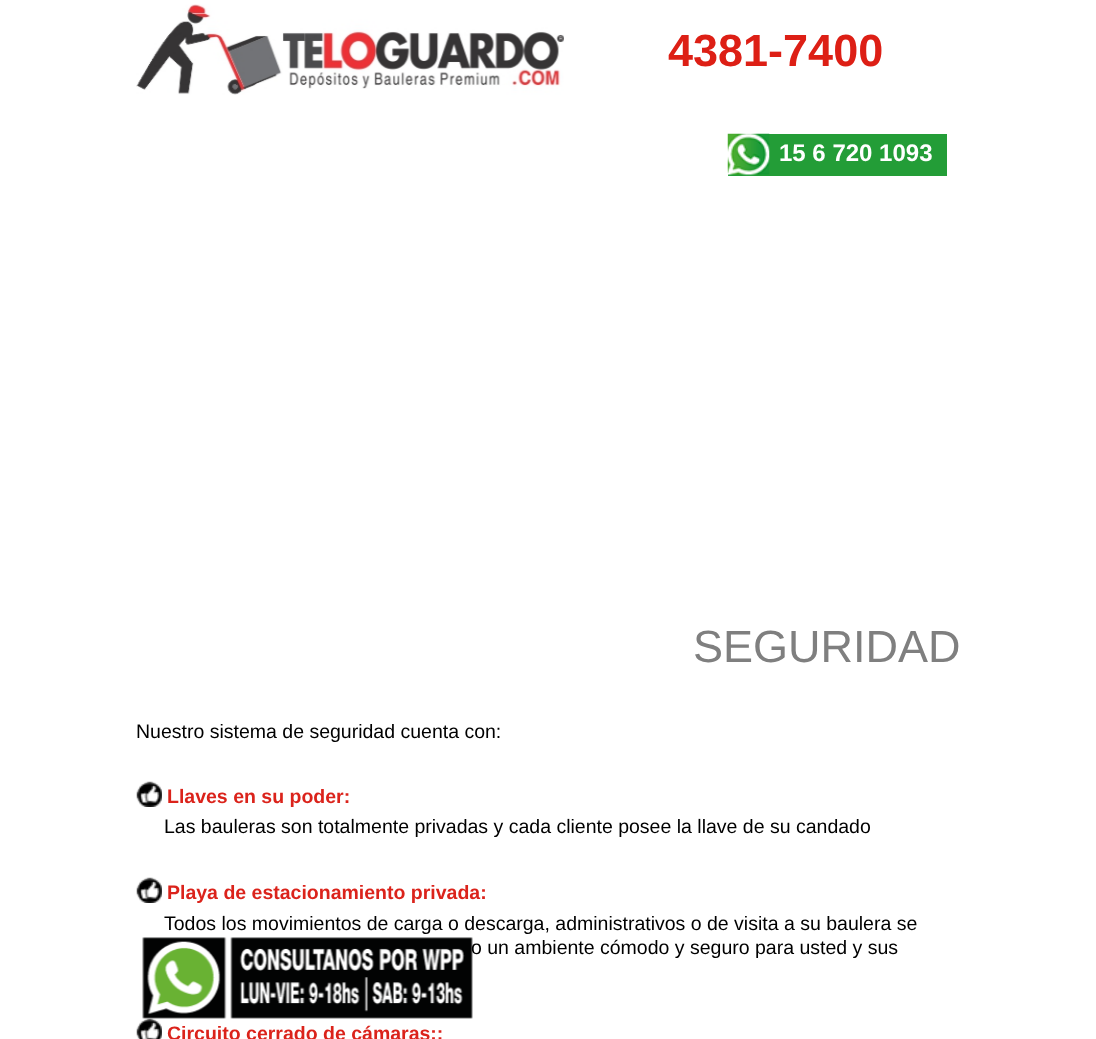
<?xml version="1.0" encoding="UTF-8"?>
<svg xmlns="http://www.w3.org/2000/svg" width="1096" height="1039">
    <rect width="100%" height="100%" fill="#FFFFFF"/>
    <image x="136" y="4" width="428" height="91" href="img_01.png"/>
    <text x="668" y="66" font-family="Liberation Sans" font-size="45" font-weight="700" fill="#DD1F15">4381-7400</text>
    <rect x="728" y="134" width="219" height="42" fill="#239D37"/>
    <image x="727" y="133" width="43" height="43" href="img_02.png"/>
    <text x="779" y="161" font-family="Liberation Sans" font-size="24" font-weight="700" fill="#FFFFFF">15 6 720 1093</text>
    <text x="693" y="662" font-family="Liberation Sans" font-size="45" fill="#7F7F7F">SEGURIDAD</text>
    <text x="136" y="738" font-family="Liberation Sans" font-size="19.5" fill="#000000">Nuestro sistema de seguridad cuenta con:</text>
    <image x="136" y="781" width="26" height="26" href="img_03.png"/>
    <text x="167" y="803" font-family="Liberation Sans" font-size="19.5" font-weight="700" fill="#DB231B">Llaves en su poder:</text>
    <text x="164" y="833" font-family="Liberation Sans" font-size="19.5" fill="#000000">Las bauleras son totalmente privadas y cada cliente posee la llave de su candado</text>
    <image x="136" y="877" width="26" height="26" href="img_03.png"/>
    <text x="167" y="899" font-family="Liberation Sans" font-size="19.5" font-weight="700" fill="#DB231B">Playa de estacionamiento privada:</text>
    <text x="164" y="930" font-family="Liberation Sans" font-size="19.5" fill="#000000">Todos los movimientos de carga o descarga, administrativos o de visita a su baulera se</text>
    <text x="471" y="954" font-family="Liberation Sans" font-size="19.5" fill="#000000">o un ambiente cómodo y seguro para usted y sus</text>
    <image x="136" y="1018" width="26" height="21" href="img_05.png"/>
    <image x="142" y="937" width="331" height="82" href="img_04.png"/>
    <text x="167" y="1040" font-family="Liberation Sans" font-size="19.5" font-weight="700" fill="#DB231B">Circuito cerrado de cámaras::</text>
</svg>
